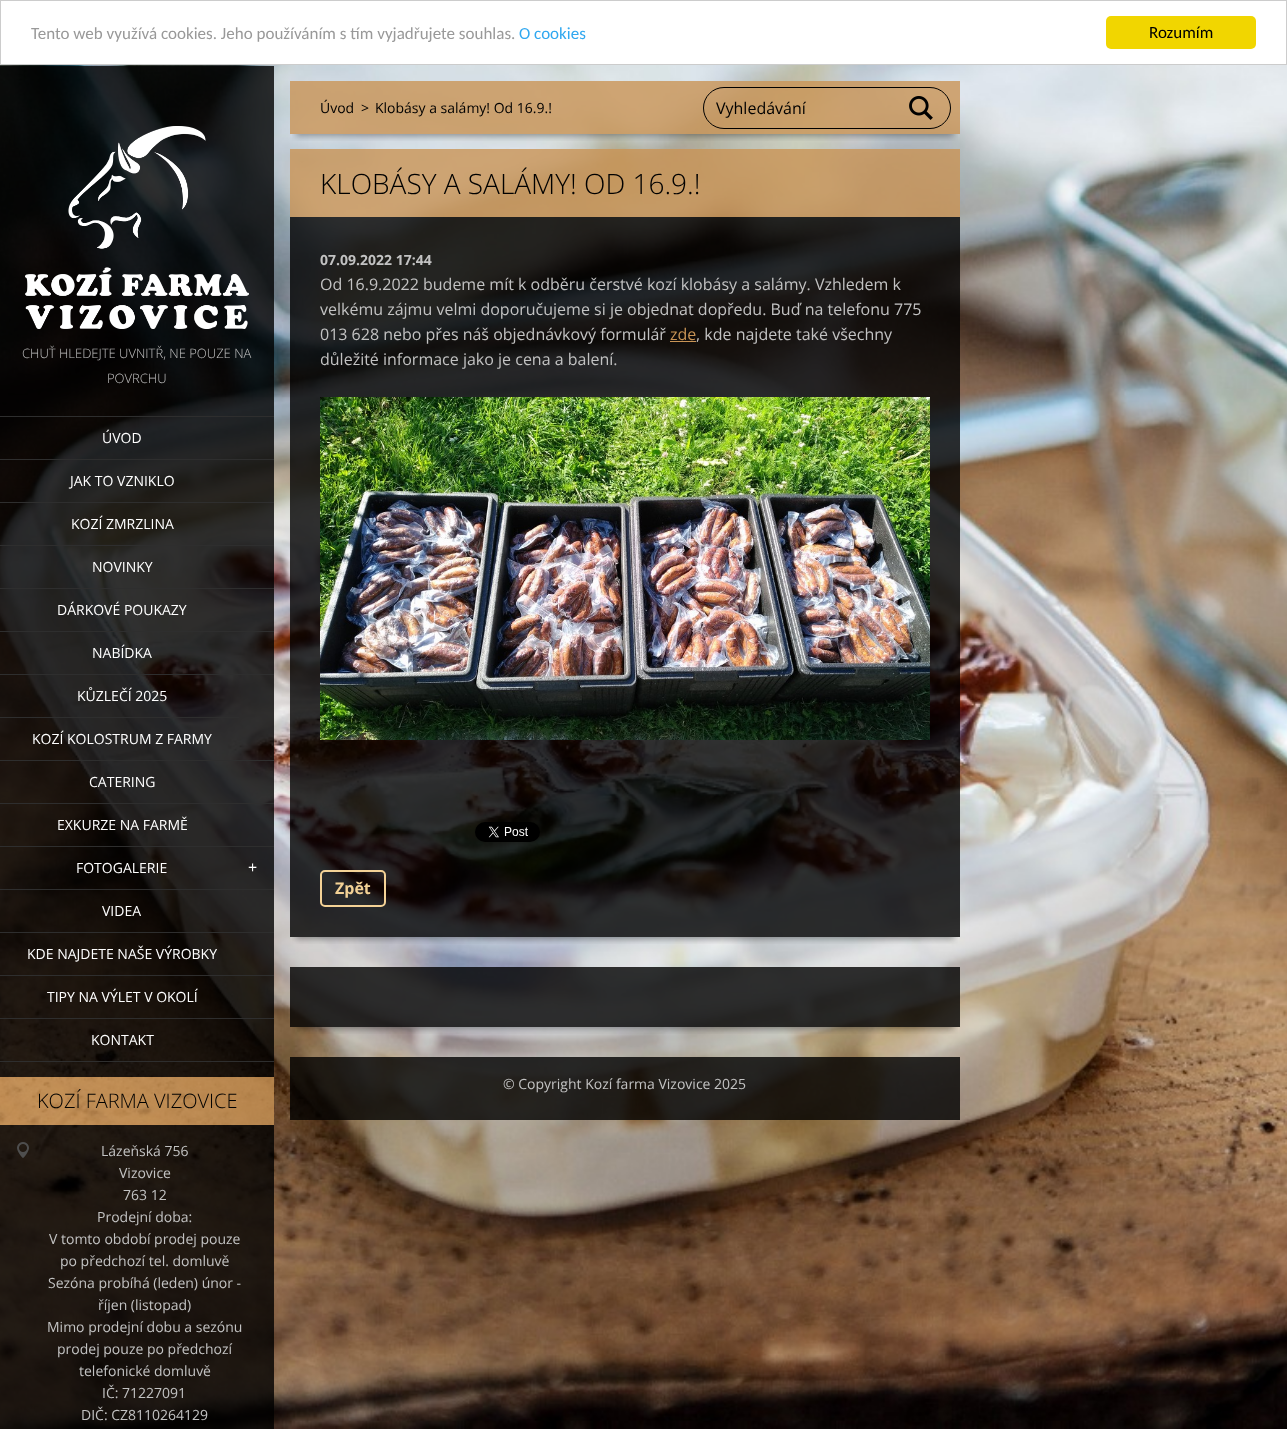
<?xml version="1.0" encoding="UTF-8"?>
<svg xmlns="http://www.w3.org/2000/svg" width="1287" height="1429">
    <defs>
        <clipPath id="clip1"><rect x="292" y="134" width="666" height="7"/></clipPath>
        <filter id="blur1" x="-50%" y="-200%" width="200%" height="500%"><feGaussianBlur stdDeviation="3"/></filter>
        <clipPath id="clip2"><rect x="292" y="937" width="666" height="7"/></clipPath>
        <clipPath id="clip3"><rect x="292" y="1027" width="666" height="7"/></clipPath>
    </defs>
    <rect width="100%" height="100%" fill="#FFFFFF"/>
    <image x="0" y="65" width="1287" height="1364" href="img_01.png"/>
    <rect x="0.5" y="0.5" width="1286" height="64" fill="none" stroke="#CCCCCC"/>
    <text x="31" y="39" font-family="Carlito" font-size="17" fill="#999999">Tento web využívá cookies. Jeho používáním s tím vyjadřujete souhlas.</text>
    <text x="519" y="39" font-family="Carlito" font-size="17" fill="#31A8F0">O cookies</text>
    <rect x="1106" y="16" width="150" height="33" rx="5" fill="#F1D600"/>
    <text x="1149" y="38" font-family="Carlito" font-size="17" fill="#000000">Rozumím</text>
    <g clip-path="url(#clip1)">
        <rect x="296" y="95" width="658" height="41" fill="#000000" fill-opacity="0.35" filter="url(#blur1)"/>
    </g>
    <rect x="290" y="81" width="670" height="53" fill="#C99455" fill-opacity="0.8"/>
    <text x="320" y="113" font-family="Open Sans" font-size="14" fill="#000000">Úvod</text>
    <text x="361" y="113" font-family="Open Sans" font-size="14" fill="#000000">&gt;</text>
    <text x="375" y="113" font-family="Open Sans" font-size="14" fill="#000000">Klobásy a salámy! Od 16.9.!</text>
    <g clip-path="url(#clip2)">
        <rect x="296" y="163" width="658" height="776" fill="#000000" fill-opacity="0.35" filter="url(#blur1)"/>
    </g>
    <rect x="290" y="149" width="670" height="68" fill="#C99455" fill-opacity="0.8"/>
    <text x="320" y="194" font-family="Open Sans" font-size="28" font-weight="300" fill="#000000">KLOBÁSY A SALÁMY! OD 16.9.!</text>
    <rect x="290" y="217" width="670" height="605" fill="#000000" fill-opacity="0.8"/>
    <text x="320" y="265" font-family="Open Sans" font-size="14" font-weight="700" fill="#C2C2C2">07.09.2022 17:44</text>
    <text font-family="Open Sans" font-size="16" fill="#C2C2C2">
        <tspan x="320" y="290">Od 16.9.2022 budeme mít k odběru čerstvé kozí klobásy a salámy. Vzhledem k</tspan>
        <tspan x="320" y="315">velkému zájmu velmi doporučujeme si je objednat dopředu. Buď na telefonu 775</tspan>
        <tspan x="320" y="340">013 628 nebo přes náš objednávkový formulář</tspan>
    </text>
    <text x="670" y="340" font-family="Open Sans" font-size="16" fill="#C99455">zde</text>
    <rect x="670" y="341" width="26" height="1" fill="#C99455"/>
    <text x="696" y="340" font-family="Open Sans" font-size="16" fill="#C2C2C2">, kde najdete také všechny</text>
    <text x="320" y="365" font-family="Open Sans" font-size="16" fill="#C2C2C2">důležité informace jako je cena a balení.</text>
    <image x="320" y="397" width="610" height="343" href="img_02.png"/>
    <rect x="290" y="822" width="670" height="115" fill="#000000" fill-opacity="0.8"/>
    <image x="475" y="822" width="65" height="20" href="img_03.png"/>
    <rect x="321" y="871" width="64" height="35" rx="4" fill="none" stroke="#F4D296" stroke-width="2"/>
    <text x="335" y="894" font-family="Open Sans" font-size="16" font-weight="700" fill="#F4D296">Zpět</text>
    <g clip-path="url(#clip3)">
        <rect x="296" y="981" width="658" height="48" fill="#000000" fill-opacity="0.35" filter="url(#blur1)"/>
    </g>
    <rect x="290" y="967" width="670" height="30" fill="#000000" fill-opacity="0.8"/>
    <rect x="290" y="997" width="670" height="30" fill="#000000" fill-opacity="0.8"/>
    <rect x="290" y="1057" width="670" height="63" fill="#000000" fill-opacity="0.8"/>
    <text x="503" y="1089" font-family="Open Sans" font-size="14" fill="#C2C2C2">© Copyright Kozí farma Vizovice 2025</text>
    <rect x="703.5" y="87.5" width="247" height="41" rx="20.5" fill="none" stroke="#000000"/>
    <text x="716" y="114" font-family="Open Sans" font-size="16" fill="#000000">Vyhledávání</text>
    <image x="909" y="96" width="24" height="24" href="img_04.png"/>
    <rect x="0" y="66" width="274" height="275" fill="#000000" fill-opacity="0.8"/>
    <image x="25" y="126" width="224" height="203" href="img_05.png"/>
    <rect x="0" y="341" width="274" height="75" fill="#000000" fill-opacity="0.8"/>
    <text x="22" y="358" font-family="Open Sans" font-size="13" font-weight="300" fill="#C2C2C2">CHUŤ HLEDEJTE UVNITŘ, NE POUZE NA</text>
    <text x="107" y="383" font-family="Open Sans" font-size="13" font-weight="300" fill="#C2C2C2">POVRCHU</text>
    <rect x="0" y="417" width="274" height="644" fill="#000000" fill-opacity="0.8"/>
    <rect x="0" y="416" width="274" height="1" fill="#2E2E2E"/>
    <rect x="0" y="459" width="274" height="1" fill="#2E2E2E"/>
    <text x="102" y="443" font-family="Open Sans" font-size="14" fill="#FFFFFF">ÚVOD</text>
    <rect x="0" y="502" width="274" height="1" fill="#2E2E2E"/>
    <text x="70" y="486" font-family="Open Sans" font-size="14" fill="#FFFFFF">JAK TO VZNIKLO</text>
    <rect x="0" y="545" width="274" height="1" fill="#2E2E2E"/>
    <text x="71" y="529" font-family="Open Sans" font-size="14" fill="#FFFFFF">KOZÍ ZMRZLINA</text>
    <rect x="0" y="588" width="274" height="1" fill="#2E2E2E"/>
    <text x="92" y="572" font-family="Open Sans" font-size="14" fill="#FFFFFF">NOVINKY</text>
    <rect x="0" y="631" width="274" height="1" fill="#2E2E2E"/>
    <text x="57" y="615" font-family="Open Sans" font-size="14" fill="#FFFFFF">DÁRKOVÉ POUKAZY</text>
    <rect x="0" y="674" width="274" height="1" fill="#2E2E2E"/>
    <text x="92" y="658" font-family="Open Sans" font-size="14" fill="#FFFFFF">NABÍDKA</text>
    <rect x="0" y="717" width="239" height="1" fill="#2E2E2E"/>
    <text x="77" y="701" font-family="Open Sans" font-size="14" fill="#FFFFFF">KŮZLEČÍ 2025</text>
    <rect x="0" y="760" width="274" height="1" fill="#2E2E2E"/>
    <text x="32" y="744" font-family="Open Sans" font-size="14" fill="#FFFFFF">KOZÍ KOLOSTRUM Z FARMY</text>
    <rect x="0" y="803" width="274" height="1" fill="#2E2E2E"/>
    <text x="89" y="787" font-family="Open Sans" font-size="14" fill="#FFFFFF">CATERING</text>
    <rect x="0" y="846" width="274" height="1" fill="#2E2E2E"/>
    <text x="57" y="830" font-family="Open Sans" font-size="14" fill="#FFFFFF">EXKURZE NA FARMĚ</text>
    <rect x="0" y="889" width="274" height="1" fill="#2E2E2E"/>
    <text x="76" y="873" font-family="Open Sans" font-size="14" fill="#FFFFFF">FOTOGALERIE</text>
    <text x="248" y="873" font-family="Open Sans" font-size="16" fill="#FFFFFF">+</text>
    <rect x="0" y="932" width="274" height="1" fill="#2E2E2E"/>
    <text x="102" y="916" font-family="Open Sans" font-size="14" fill="#FFFFFF">VIDEA</text>
    <rect x="0" y="975" width="274" height="1" fill="#2E2E2E"/>
    <text x="27" y="959" font-family="Open Sans" font-size="14" fill="#FFFFFF">KDE NAJDETE NAŠE VÝROBKY</text>
    <rect x="0" y="1018" width="274" height="1" fill="#2E2E2E"/>
    <text x="47" y="1002" font-family="Open Sans" font-size="14" fill="#FFFFFF">TIPY NA VÝLET V OKOLÍ</text>
    <rect x="0" y="1061" width="274" height="1" fill="#2E2E2E"/>
    <text x="91" y="1045" font-family="Open Sans" font-size="14" fill="#FFFFFF">KONTAKT</text>
    <rect x="0" y="1062" width="274" height="15" fill="#000000" fill-opacity="0.8"/>
    <rect x="0" y="1077" width="274" height="48" fill="#C99455" fill-opacity="0.8"/>
    <text x="37" y="1108" font-family="Open Sans" font-size="20" font-weight="300" fill="#000000">KOZÍ FARMA VIZOVICE</text>
    <rect x="0" y="1125" width="274" height="304" fill="#000000" fill-opacity="0.8"/>
    <image x="17" y="1142" width="12" height="16" href="img_06.png"/>
    <text x="101" y="1156" font-family="Open Sans" font-size="14" fill="#C2C2C2">Lázeňská 756</text>
    <text x="119" y="1178" font-family="Open Sans" font-size="14" fill="#C2C2C2">Vizovice</text>
    <text x="123" y="1200" font-family="Open Sans" font-size="14" fill="#C2C2C2">763 12</text>
    <text x="97" y="1222" font-family="Open Sans" font-size="14" fill="#C2C2C2">Prodejní doba:</text>
    <text x="49" y="1244" font-family="Open Sans" font-size="14" fill="#C2C2C2">V tomto období prodej pouze</text>
    <text x="60" y="1266" font-family="Open Sans" font-size="14" fill="#C2C2C2">po předchozí tel. domluvě</text>
    <text x="48" y="1288" font-family="Open Sans" font-size="14" fill="#C2C2C2">Sezóna probíhá (leden) únor -</text>
    <text x="98" y="1310" font-family="Open Sans" font-size="14" fill="#C2C2C2">říjen (listopad)</text>
    <text x="47" y="1332" font-family="Open Sans" font-size="14" fill="#C2C2C2">Mimo prodejní dobu a sezónu</text>
    <text x="57" y="1354" font-family="Open Sans" font-size="14" fill="#C2C2C2">prodej pouze po předchozí</text>
    <text x="79" y="1376" font-family="Open Sans" font-size="14" fill="#C2C2C2">telefonické domluvě</text>
    <text x="102" y="1398" font-family="Open Sans" font-size="14" fill="#C2C2C2">IČ: 71227091</text>
    <text x="81" y="1420" font-family="Open Sans" font-size="14" fill="#C2C2C2">DIČ: CZ8110264129</text>
</svg>
